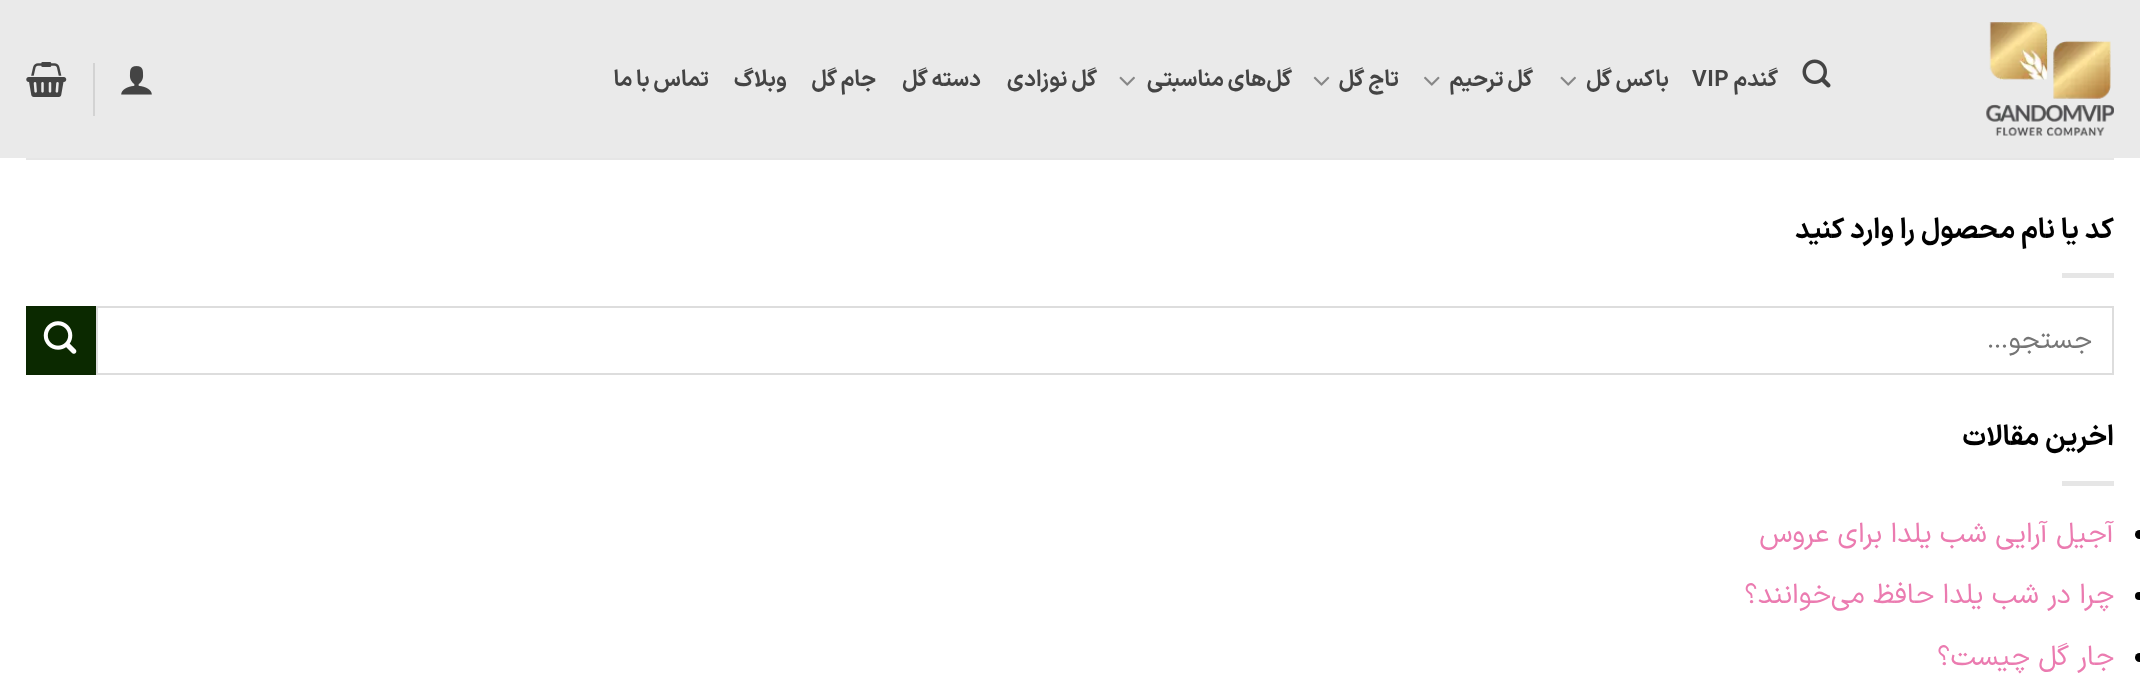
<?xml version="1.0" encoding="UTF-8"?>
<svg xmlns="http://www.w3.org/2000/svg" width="2140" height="699">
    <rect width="100%" height="100%" fill="#FFFFFF"/>
    <rect x="0" y="0" width="2140" height="158" fill="#EAEAEA"/>
    <image x="1986" y="22" width="128" height="114" href="img_01.png"/>
    <image x="1802" y="59" width="29" height="29" href="img_02.png"/>
    <text x="1778" y="86" font-family="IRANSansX" font-size="22.5" font-weight="700" letter-spacing="0.5" direction="rtl" fill="#444444">گندم</text>
    <text x="1692" y="86" font-family="IRANSansX" font-size="22.5" font-weight="700" letter-spacing="0.5" fill="#444444">VIP</text>
    <text x="1669" y="86" word-spacing="-1" font-family="IRANSansX" font-size="22.5" font-weight="700" letter-spacing="0.5" direction="rtl" fill="#444444">باکس گل</text>
    <image x="1560" y="76" width="16" height="10" href="img_03.png"/>
    <text x="1533" y="86" word-spacing="-1" font-family="IRANSansX" font-size="22.5" font-weight="700" letter-spacing="0.5" direction="rtl" fill="#444444">گل ترحیم</text>
    <image x="1424" y="76" width="16" height="10" href="img_04.png"/>
    <text x="1399" y="86" word-spacing="-1" font-family="IRANSansX" font-size="22.5" font-weight="700" letter-spacing="0.5" direction="rtl" fill="#444444">تاج گل</text>
    <image x="1313" y="76" width="17" height="10" href="img_05.png"/>
    <text x="1292" y="86" word-spacing="-1" font-family="IRANSansX" font-size="22.5" font-weight="700" letter-spacing="0.5" direction="rtl" fill="#444444">گل‌های مناسبتی</text>
    <image x="1119" y="76" width="16" height="10" href="img_03.png"/>
    <text x="1097" y="86" word-spacing="-1" font-family="IRANSansX" font-size="22.5" font-weight="700" letter-spacing="0.5" direction="rtl" fill="#444444">گل نوزادی</text>
    <text x="981" y="86" word-spacing="-1" font-family="IRANSansX" font-size="22.5" font-weight="700" letter-spacing="0.5" direction="rtl" fill="#444444">دسته گل</text>
    <text x="876" y="86" word-spacing="-1" font-family="IRANSansX" font-size="22.5" font-weight="700" letter-spacing="0.5" direction="rtl" fill="#444444">جام گل</text>
    <text x="787" y="86" font-family="IRANSansX" font-size="22.5" font-weight="700" letter-spacing="0.5" direction="rtl" fill="#444444">وبلاگ</text>
    <text x="709" y="86" word-spacing="-1" font-family="IRANSansX" font-size="22.5" font-weight="700" letter-spacing="0.5" direction="rtl" fill="#444444">تماس با ما</text>
    <image x="121" y="66" width="31" height="29" href="img_06.png"/>
    <rect x="93" y="63" width="2" height="53" fill="#D3D3D3"/>
    <image x="26" y="62" width="41" height="35" href="img_07.png"/>
    <rect x="26" y="158" width="2088" height="2" fill="#E6E6E6"/>
    <text x="2114" y="238" font-family="IRANSansX" font-size="28" font-weight="700" direction="rtl" fill="#000000">کد یا نام محصول را وارد کنید</text>
    <rect x="2062" y="273" width="52" height="5" fill="#E6E6E6"/>
    <rect x="97" y="307" width="2016" height="67" fill="none" stroke="#DDDDDD" stroke-width="2"/>
    <text x="2092" y="348" font-family="IRANSansX" font-size="27" direction="rtl" fill="#757575">جستجو…</text>
    <rect x="27" y="307" width="68" height="67" fill="#0B2900" stroke="#0A2700" stroke-width="2"/>
    <image x="43" y="321" width="34" height="33" href="img_08.png"/>
    <text x="2114" y="445" font-family="IRANSansX" font-size="28" font-weight="700" direction="rtl" fill="#000000">اخرین مقالات</text>
    <rect x="2062" y="481" width="52" height="5" fill="#E6E6E6"/>
    <circle cx="2139.5" cy="534.5" r="4.5" fill="#000000"/>
    <text x="2114" y="542" font-family="IRANSansX" font-size="28" direction="rtl" fill="#EB7BB0">آجیل آرایی شب یلدا برای عروس</text>
    <rect x="2135" y="592" width="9" height="8" rx="4" fill="#000000"/>
    <text x="2114" y="603" font-family="IRANSansX" font-size="28" direction="rtl" fill="#EB7BB0">چرا در شب یلدا حافظ می‌خوانند؟</text>
    <circle cx="2139.5" cy="657.5" r="4.5" fill="#000000"/>
    <text x="2114" y="665" font-family="IRANSansX" font-size="28" direction="rtl" fill="#EB7BB0">جار گل چیست؟</text>
</svg>
